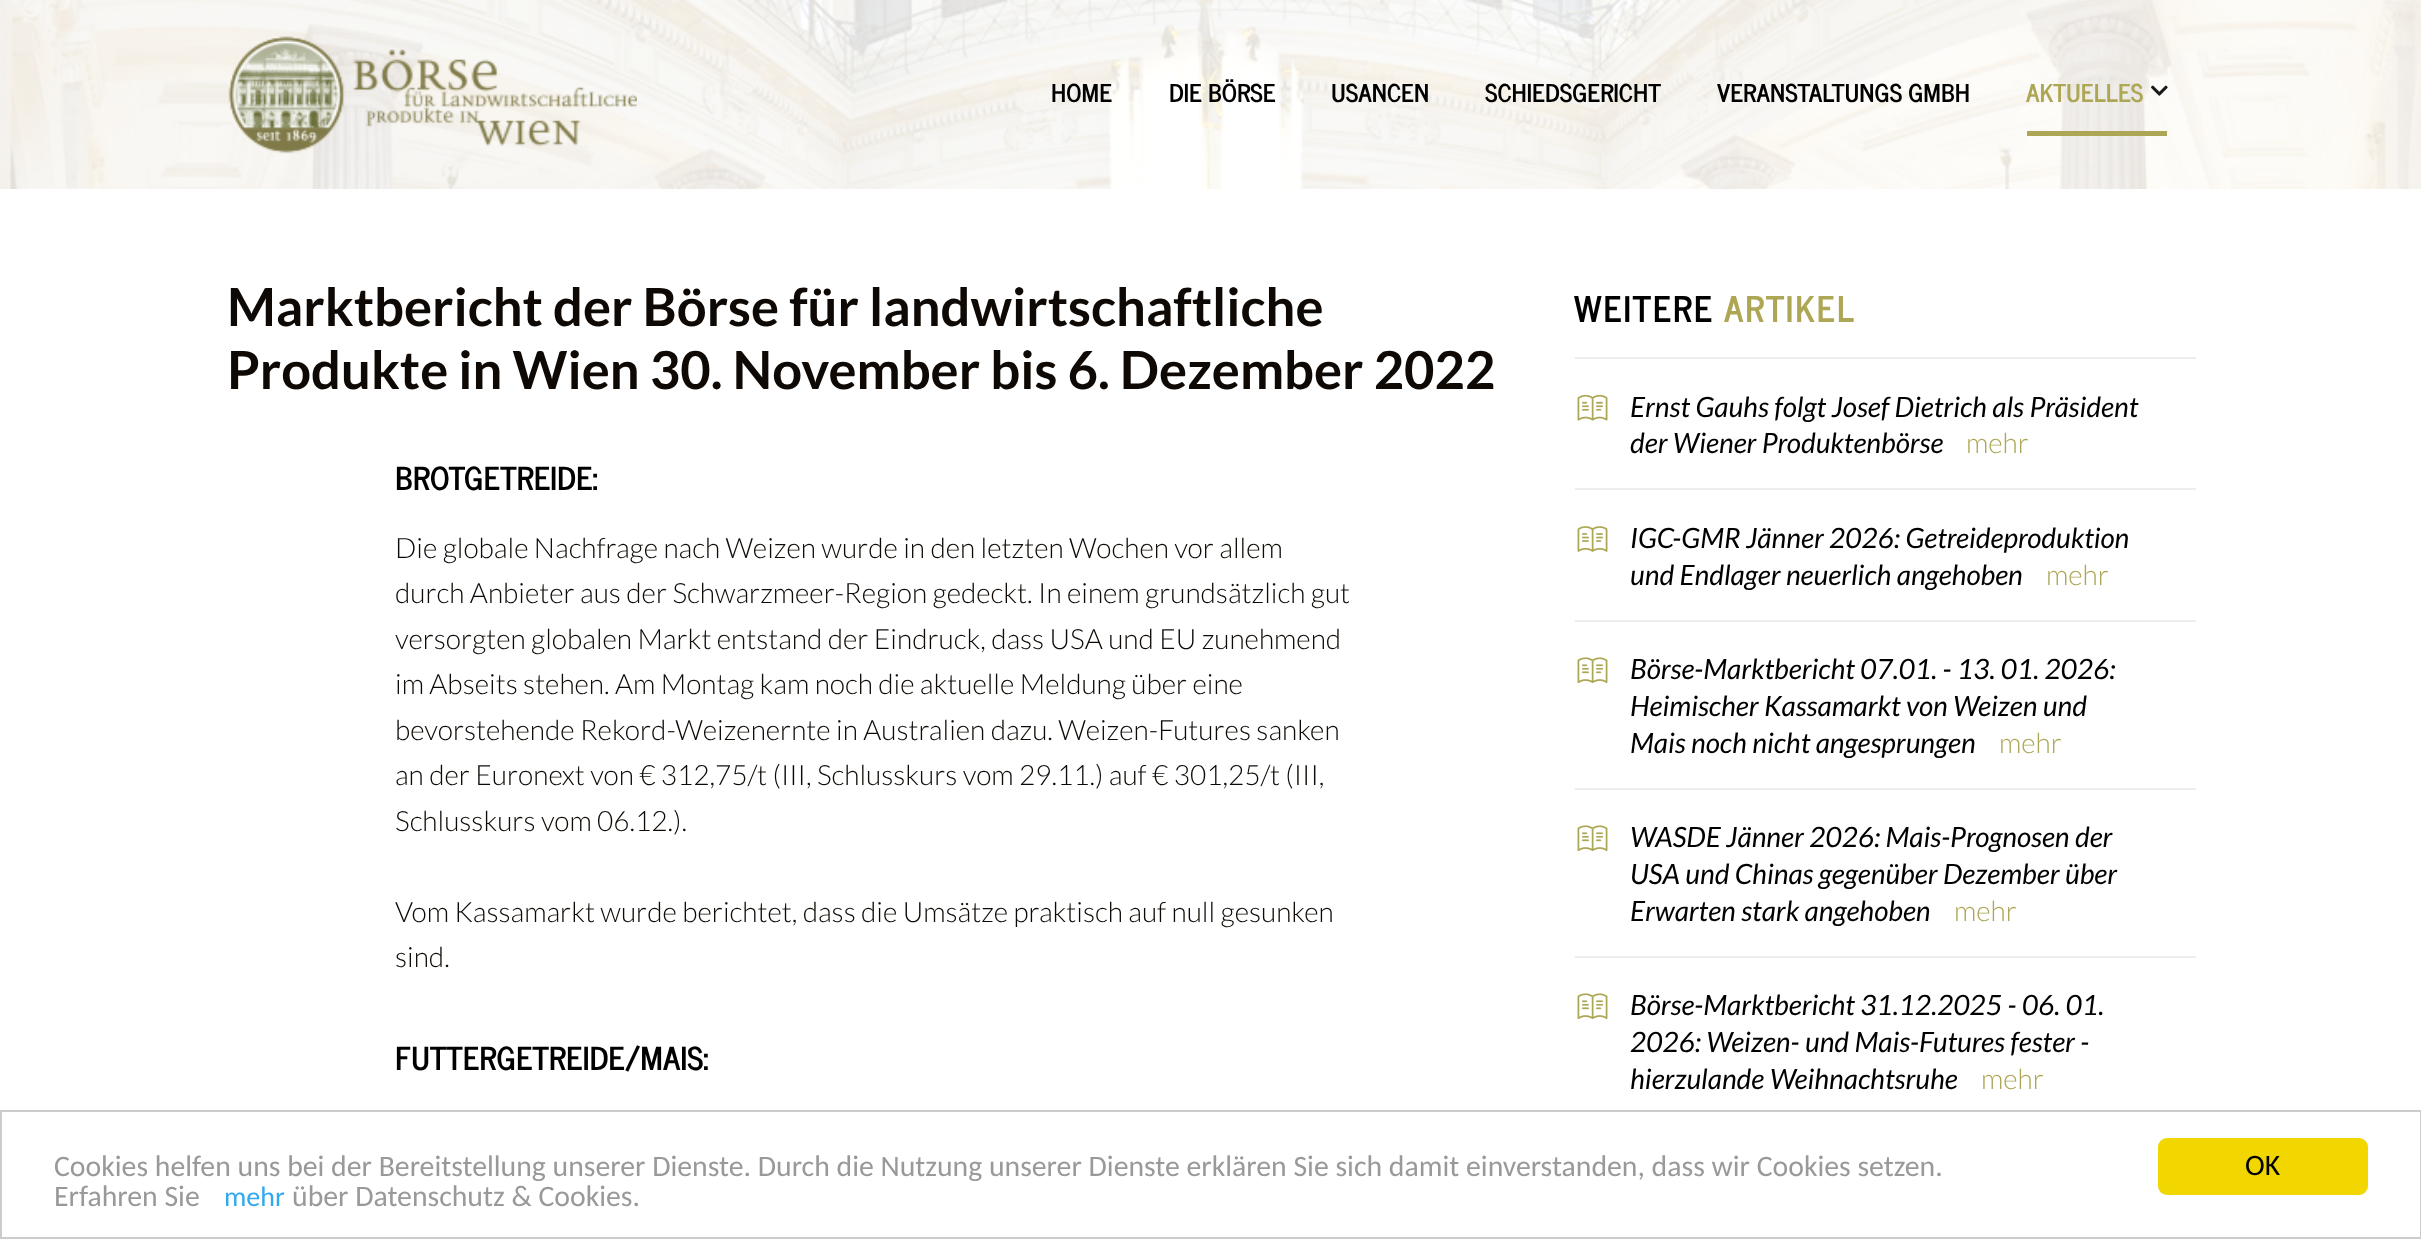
<?xml version="1.0" encoding="UTF-8"?>
<svg xmlns="http://www.w3.org/2000/svg" width="2421" height="1239">
    <rect width="100%" height="100%" fill="#FFFFFF"/>
    <image x="0" y="0" width="2421" height="189" href="img_01.png"/>
    <image x="228" y="36" width="409" height="118" href="img_02.png"/>
    <text x="1051" y="102" font-family="News Cycle" font-size="24.5" font-weight="700" fill="#000000">HOME</text>
    <text x="1169" y="102" font-family="News Cycle" font-size="24.5" font-weight="700" fill="#000000">DIE BÖRSE</text>
    <text x="1331" y="102" font-family="News Cycle" font-size="24.5" font-weight="700" fill="#000000">USANCEN</text>
    <text x="1485" y="102" font-family="News Cycle" font-size="24.5" font-weight="700" fill="#000000">SCHIEDSGERICHT</text>
    <text x="1717" y="102" font-family="News Cycle" font-size="24.5" font-weight="700" fill="#000000">VERANSTALTUNGS GMBH</text>
    <rect x="2027" y="131" width="140" height="5" fill="#ADA755"/>
    <text x="2026" y="102" font-family="News Cycle" font-size="24.5" font-weight="700" fill="#ADA755">AKTUELLES</text>
    <image x="2151" y="85" width="17" height="11" href="img_03.png"/>
    <text font-family="Lato" font-size="52.5" font-weight="700" fill="#0E0904">
        <tspan x="227" y="326">Marktbericht der Börse für landwirtschaftliche</tspan>
        <tspan x="227" y="389">Produkte in Wien 30. November bis 6. Dezember 2022</tspan>
    </text>
    <text x="395" y="490" font-family="News Cycle" font-size="31.5" font-weight="700" fill="#000000">BROTGETREIDE:</text>
    <text font-family="Lato" font-size="28" font-weight="300" fill="#0E0904">
        <tspan x="395" y="558">Die globale Nachfrage nach Weizen wurde in den letzten Wochen vor allem</tspan>
        <tspan x="395" y="603">durch Anbieter aus der Schwarzmeer-Region gedeckt. In einem grundsätzlich gut</tspan>
        <tspan x="395" y="649">versorgten globalen Markt entstand der Eindruck, dass USA und EU zunehmend</tspan>
        <tspan x="395" y="694">im Abseits stehen. Am Montag kam noch die aktuelle Meldung über eine</tspan>
        <tspan x="395" y="740">bevorstehende Rekord-Weizenernte in Australien dazu. Weizen-Futures sanken</tspan>
        <tspan x="395" y="785">an der Euronext von € 312,75/t (III, Schlusskurs vom 29.11.) auf € 301,25/t (III,</tspan>
        <tspan x="395" y="831">Schlusskurs vom 06.12.).</tspan>
    </text>
    <text font-family="Lato" font-size="28" font-weight="300" fill="#0E0904">
        <tspan x="395" y="922">Vom Kassamarkt wurde berichtet, dass die Umsätze praktisch auf null gesunken</tspan>
        <tspan x="395" y="967">sind.</tspan>
    </text>
    <text x="395" y="1070" font-family="News Cycle" font-size="31.5" font-weight="700" fill="#000000">FUTTERGETREIDE/MAIS:</text>
    <rect x="1575" y="357" width="621" height="2" fill="#EDEDED"/>
    <text x="1574" y="322" font-family="News Cycle" font-size="35" font-weight="700" letter-spacing="1.75" fill="#000000">WEITERE</text>
    <text x="1724" y="322" font-family="News Cycle" font-size="35" font-weight="700" letter-spacing="1.75" fill="#ADA755">ARTIKEL</text>
    <rect x="1575" y="488" width="621" height="2" fill="#EDEDED"/>
    <image x="1577" y="394" width="31" height="27" href="img_04.png"/>
    <text font-family="Lato" font-size="28" font-style="italic" fill="#000000">
        <tspan x="1630" y="417">Ernst Gauhs folgt Josef Dietrich als Präsident</tspan>
        <tspan x="1630" y="453">der Wiener Produktenbörse</tspan>
    </text>
    <text x="1966" y="453" font-family="Lato" font-size="28" font-weight="300" fill="#ADA755">mehr</text>
    <rect x="1575" y="620" width="621" height="2" fill="#EDEDED"/>
    <image x="1577" y="526" width="31" height="26" href="img_05.png"/>
    <text font-family="Lato" font-size="28" font-style="italic" fill="#000000">
        <tspan x="1630" y="548">IGC-GMR Jänner 2026: Getreideproduktion</tspan>
        <tspan x="1630" y="585">und Endlager neuerlich angehoben</tspan>
    </text>
    <text x="2046" y="585" font-family="Lato" font-size="28" font-weight="300" fill="#ADA755">mehr</text>
    <rect x="1575" y="788" width="621" height="2" fill="#EDEDED"/>
    <image x="1577" y="657" width="31" height="27" href="img_06.png"/>
    <text font-family="Lato" font-size="28" font-style="italic" fill="#000000">
        <tspan x="1630" y="679">Börse-Marktbericht 07.01. - 13. 01. 2026:</tspan>
        <tspan x="1630" y="716">Heimischer Kassamarkt von Weizen und</tspan>
        <tspan x="1630" y="753">Mais noch nicht angesprungen</tspan>
    </text>
    <text x="1999" y="753" font-family="Lato" font-size="28" font-weight="300" fill="#ADA755">mehr</text>
    <rect x="1575" y="956" width="621" height="2" fill="#EDEDED"/>
    <image x="1577" y="825" width="31" height="27" href="img_06.png"/>
    <text font-family="Lato" font-size="28" font-style="italic" fill="#000000">
        <tspan x="1630" y="847">WASDE Jänner 2026: Mais-Prognosen der</tspan>
        <tspan x="1630" y="884">USA und Chinas gegenüber Dezember über</tspan>
        <tspan x="1630" y="921">Erwarten stark angehoben</tspan>
    </text>
    <text x="1954" y="921" font-family="Lato" font-size="28" font-weight="300" fill="#ADA755">mehr</text>
    <image x="1577" y="993" width="31" height="27" href="img_06.png"/>
    <text font-family="Lato" font-size="28" font-style="italic" fill="#000000">
        <tspan x="1630" y="1015">Börse-Marktbericht 31.12.2025 - 06. 01.</tspan>
        <tspan x="1630" y="1052">2026: Weizen- und Mais-Futures fester -</tspan>
        <tspan x="1630" y="1089">hierzulande Weihnachtsruhe</tspan>
    </text>
    <text x="1981" y="1089" font-family="Lato" font-size="28" font-weight="300" fill="#ADA755">mehr</text>
    <rect x="1" y="1111" width="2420" height="127" fill="none" stroke="#CCCCCC" stroke-width="2"/>
    <text font-family="Carlito" font-size="29.75" fill="#999999">
        <tspan x="54" y="1176">Cookies helfen uns bei der Bereitstellung unserer Dienste. Durch die Nutzung unserer Dienste erklären Sie sich damit einverstanden, dass wir Cookies setzen.</tspan>
        <tspan x="54" y="1206">Erfahren Sie</tspan>
    </text>
    <text x="224" y="1206" font-family="Carlito" font-size="28" fill="#31A8F0">mehr</text>
    <text x="292" y="1206" font-family="Carlito" font-size="29.75" fill="#999999">über Datenschutz &amp; Cookies.</text>
    <rect x="2158" y="1138" width="210" height="57" rx="9" fill="#F1D600"/>
    <text x="2245" y="1175" font-family="Carlito" font-size="29.75" fill="#000000">OK</text>
</svg>
